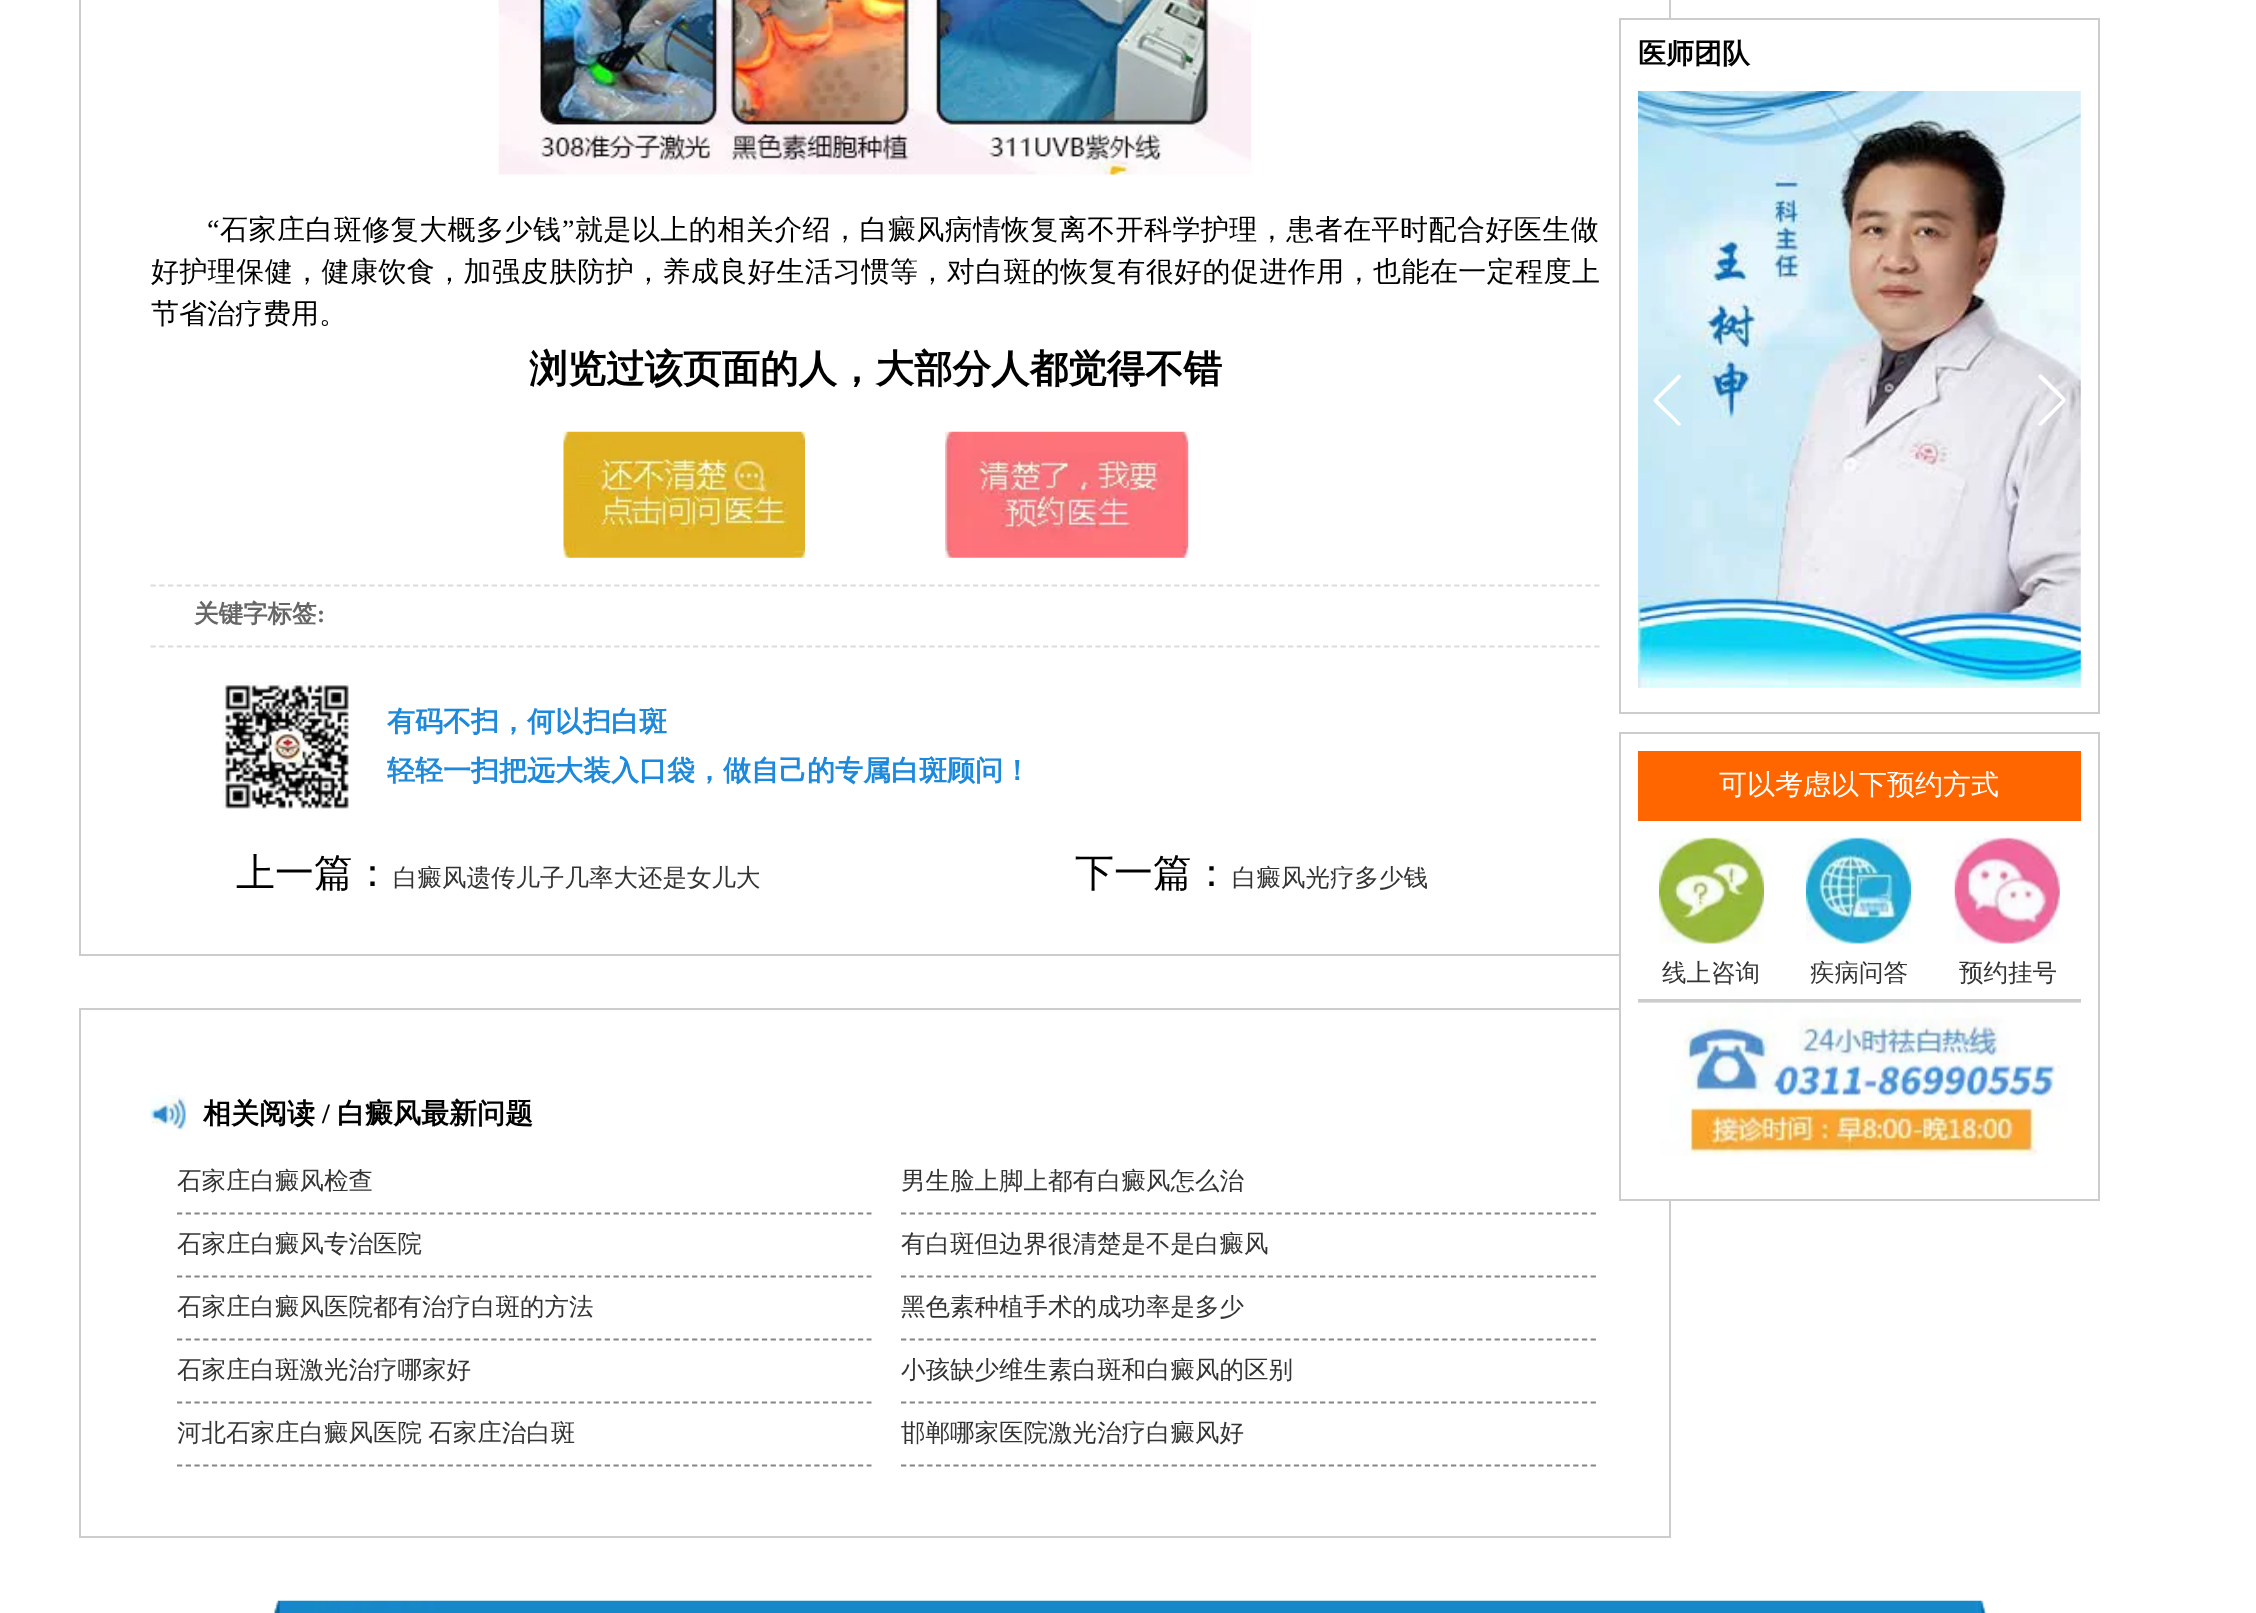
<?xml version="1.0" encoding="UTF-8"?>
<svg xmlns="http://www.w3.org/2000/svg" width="2256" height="1613">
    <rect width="100%" height="100%" fill="#FFFFFF"/>
    <rect x="80" y="-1" width="1590" height="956" fill="none" stroke="#CCCCCC" stroke-width="2"/>
    <image x="498" y="0" width="754" height="175" href="img_01.png"/>
    <text x="207" y="239" font-family="Liberation Serif" font-size="28" letter-spacing="0.45" fill="#000000">“</text>
    <text x="220" y="239" font-family="WenQuanYi Zen Hei" font-size="28" font-weight="500" letter-spacing="0.45" fill="#000000">石家庄白斑修复大概多少钱</text>
    <text x="562" y="239" font-family="Liberation Serif" font-size="28" letter-spacing="0.45" fill="#000000">”</text>
    <text x="575" y="239" font-family="WenQuanYi Zen Hei" font-size="28" font-weight="500" letter-spacing="0.45" fill="#000000">就是以上的相关介绍，白癜风病情恢复离不开科学护理，患者在平时配合好医生做</text>
    <text x="151" y="281" font-family="WenQuanYi Zen Hei" font-size="28" font-weight="500" letter-spacing="0.42" fill="#000000">好护理保健，健康饮食，加强皮肤防护，养成良好生活习惯等，对白斑的恢复有很好的促进作用，也能在一定程度上</text>
    <text x="151" y="323" font-family="WenQuanYi Zen Hei" font-size="28" font-weight="500" fill="#000000">节省治疗费用。</text>
    <text x="529" y="382" font-family="WenQuanYi Zen Hei" font-size="38.5" font-weight="700" fill="#000000">浏览过该页面的人，大部分人都觉得不错</text>
    <image x="563" y="431" width="242" height="127" href="img_02.png"/>
    <image x="945" y="431" width="244" height="127" href="img_03.png"/>
    <path d="M 150.5 585.5 H 1599.5" fill="none" stroke="#DCDCDC" stroke-width="1.8" stroke-dasharray="5.25 3.5"/>
    <path d="M 150.5 646.5 H 1599.5" fill="none" stroke="#DCDCDC" stroke-width="1.8" stroke-dasharray="5.25 3.5"/>
    <text x="194" y="622" font-family="WenQuanYi Zen Hei" font-size="24.5" font-weight="700" fill="#666666">关键字标签</text>
    <text x="317" y="622" font-family="Liberation Serif" font-size="24.5" font-weight="700" fill="#666666">:</text>
    <image x="222" y="682" width="127" height="127" href="img_04.png"/>
    <text font-family="WenQuanYi Zen Hei" font-size="28" font-weight="700" fill="#1C89DC">
        <tspan x="387" y="731">有码不扫，何以扫白斑</tspan>
        <tspan x="387" y="780">轻轻一扫把远大装入口袋，做自己的专属白斑顾问！</tspan>
    </text>
    <text x="236" y="886" font-family="WenQuanYi Zen Hei" font-size="39" font-weight="500" fill="#000000">上一篇：</text>
    <text x="393" y="886" font-family="WenQuanYi Zen Hei" font-size="24.5" font-weight="500" fill="#333333">白癜风遗传儿子几率大还是女儿大</text>
    <text x="1075" y="886" font-family="WenQuanYi Zen Hei" font-size="39" font-weight="500" fill="#000000">下一篇：</text>
    <text x="1232" y="886" font-family="WenQuanYi Zen Hei" font-size="24.5" font-weight="500" fill="#333333">白癜风光疗多少钱</text>
    <rect x="80" y="1009" width="1590" height="528" fill="none" stroke="#CCCCCC" stroke-width="2"/>
    <image x="150" y="1095" width="36" height="35" href="img_05.png"/>
    <text x="203" y="1123" font-family="WenQuanYi Zen Hei" font-size="28" font-weight="700" fill="#000000">相关阅读</text>
    <text x="322" y="1123" font-family="Liberation Serif" font-size="28" font-weight="700" fill="#000000">/</text>
    <text x="337" y="1123" font-family="WenQuanYi Zen Hei" font-size="28" font-weight="700" fill="#000000">白癜风最新问题</text>
    <path d="M 177 1213.5 H 871.5" fill="none" stroke="#858585" stroke-width="1.8" stroke-dasharray="5.25 3.48"/>
    <text x="177" y="1189" font-family="WenQuanYi Zen Hei" font-size="24.5" font-weight="500" fill="#333333">石家庄白癜风检查</text>
    <path d="M 901 1213.5 H 1596" fill="none" stroke="#858585" stroke-width="1.8" stroke-dasharray="5.25 3.48"/>
    <text x="901" y="1189" font-family="WenQuanYi Zen Hei" font-size="24.5" font-weight="500" fill="#333333">男生脸上脚上都有白癜风怎么治</text>
    <path d="M 177 1276.5 H 871.5" fill="none" stroke="#858585" stroke-width="1.8" stroke-dasharray="5.25 3.48"/>
    <text x="177" y="1252" font-family="WenQuanYi Zen Hei" font-size="24.5" font-weight="500" fill="#333333">石家庄白癜风专治医院</text>
    <path d="M 901 1276.5 H 1596" fill="none" stroke="#858585" stroke-width="1.8" stroke-dasharray="5.25 3.48"/>
    <text x="901" y="1252" font-family="WenQuanYi Zen Hei" font-size="24.5" font-weight="500" fill="#333333">有白斑但边界很清楚是不是白癜风</text>
    <path d="M 177 1339.5 H 871.5" fill="none" stroke="#858585" stroke-width="1.8" stroke-dasharray="5.25 3.48"/>
    <text x="177" y="1315" font-family="WenQuanYi Zen Hei" font-size="24.5" font-weight="500" fill="#333333">石家庄白癜风医院都有治疗白斑的方法</text>
    <path d="M 901 1339.5 H 1596" fill="none" stroke="#858585" stroke-width="1.8" stroke-dasharray="5.25 3.48"/>
    <text x="901" y="1315" font-family="WenQuanYi Zen Hei" font-size="24.5" font-weight="500" fill="#333333">黑色素种植手术的成功率是多少</text>
    <path d="M 177 1402.5 H 871.5" fill="none" stroke="#858585" stroke-width="1.8" stroke-dasharray="5.25 3.48"/>
    <text x="177" y="1378" font-family="WenQuanYi Zen Hei" font-size="24.5" font-weight="500" fill="#333333">石家庄白斑激光治疗哪家好</text>
    <path d="M 901 1402.5 H 1596" fill="none" stroke="#858585" stroke-width="1.8" stroke-dasharray="5.25 3.48"/>
    <text x="901" y="1378" font-family="WenQuanYi Zen Hei" font-size="24.5" font-weight="500" fill="#333333">小孩缺少维生素白斑和白癜风的区别</text>
    <path d="M 177 1465.5 H 871.5" fill="none" stroke="#858585" stroke-width="1.8" stroke-dasharray="5.25 3.48"/>
    <text x="177" y="1441" word-spacing="-1" font-family="WenQuanYi Zen Hei" font-size="24.5" font-weight="500" fill="#333333">河北石家庄白癜风医院 石家庄治白斑</text>
    <path d="M 901 1465.5 H 1596" fill="none" stroke="#858585" stroke-width="1.8" stroke-dasharray="5.25 3.48"/>
    <text x="901" y="1441" font-family="WenQuanYi Zen Hei" font-size="24.5" font-weight="500" fill="#333333">邯郸哪家医院激光治疗白癜风好</text>
    <rect x="1619" y="20" width="52" height="1179" fill="#FFFFFF"/>
    <rect x="1620" y="19" width="479" height="694" fill="none" stroke="#CCCCCC" stroke-width="2"/>
    <text x="1638" y="63" font-family="WenQuanYi Zen Hei" font-size="28" font-weight="700" fill="#000000">医师团队</text>
    <image x="1638" y="91" width="443" height="597" href="img_06.png"/>
    <path d="M 1678 375 C 1679 374 1681 375 1681 377 C 1681 378 1660 398 1658 400 C 1660 403 1681 423 1681 424 C 1680 428 1676 424 1674 421 L 1658 406 C 1652 400 1652 401 1658 395 Z" fill="#FFFFFF"/>
    <path d="M 2039 425 C 2038 425 2038 424 2039 423 L 2062 400 L 2039 378 C 2038 377 2038 376 2039 375 C 2040 374 2041 374 2042 375 L 2065 398 L 2066 400 L 2065 402 L 2042 425 C 2041 426 2040 426 2039 425 Z" fill="#FFFFFF"/>
    <rect x="1620" y="733" width="479" height="467" fill="none" stroke="#CCCCCC" stroke-width="2"/>
    <rect x="1638" y="751" width="443" height="70" fill="#FF6600"/>
    <text x="1719" y="794" font-family="WenQuanYi Zen Hei" font-size="28" font-weight="500" fill="#FFFFFF">可以考虑以下预约方式</text>
    <rect x="1638" y="999" width="443" height="4" fill="#CCCCCC"/>
    <image x="1659" y="837" width="105" height="107" href="img_07.png"/>
    <text x="1662" y="981" font-family="WenQuanYi Zen Hei" font-size="24.5" font-weight="500" fill="#333333">线上咨询</text>
    <image x="1806" y="837" width="105" height="107" href="img_08.png"/>
    <text x="1810" y="981" font-family="WenQuanYi Zen Hei" font-size="24.5" font-weight="500" fill="#333333">疾病问答</text>
    <image x="1954" y="837" width="106" height="107" href="img_09.png"/>
    <text x="1959" y="981" font-family="WenQuanYi Zen Hei" font-size="24.5" font-weight="500" fill="#333333">预约挂号</text>
    <image x="1638" y="1002" width="443" height="154" href="img_10.png"/>
    <image x="274" y="1600" width="1713" height="13" href="img_11.png"/>
</svg>
